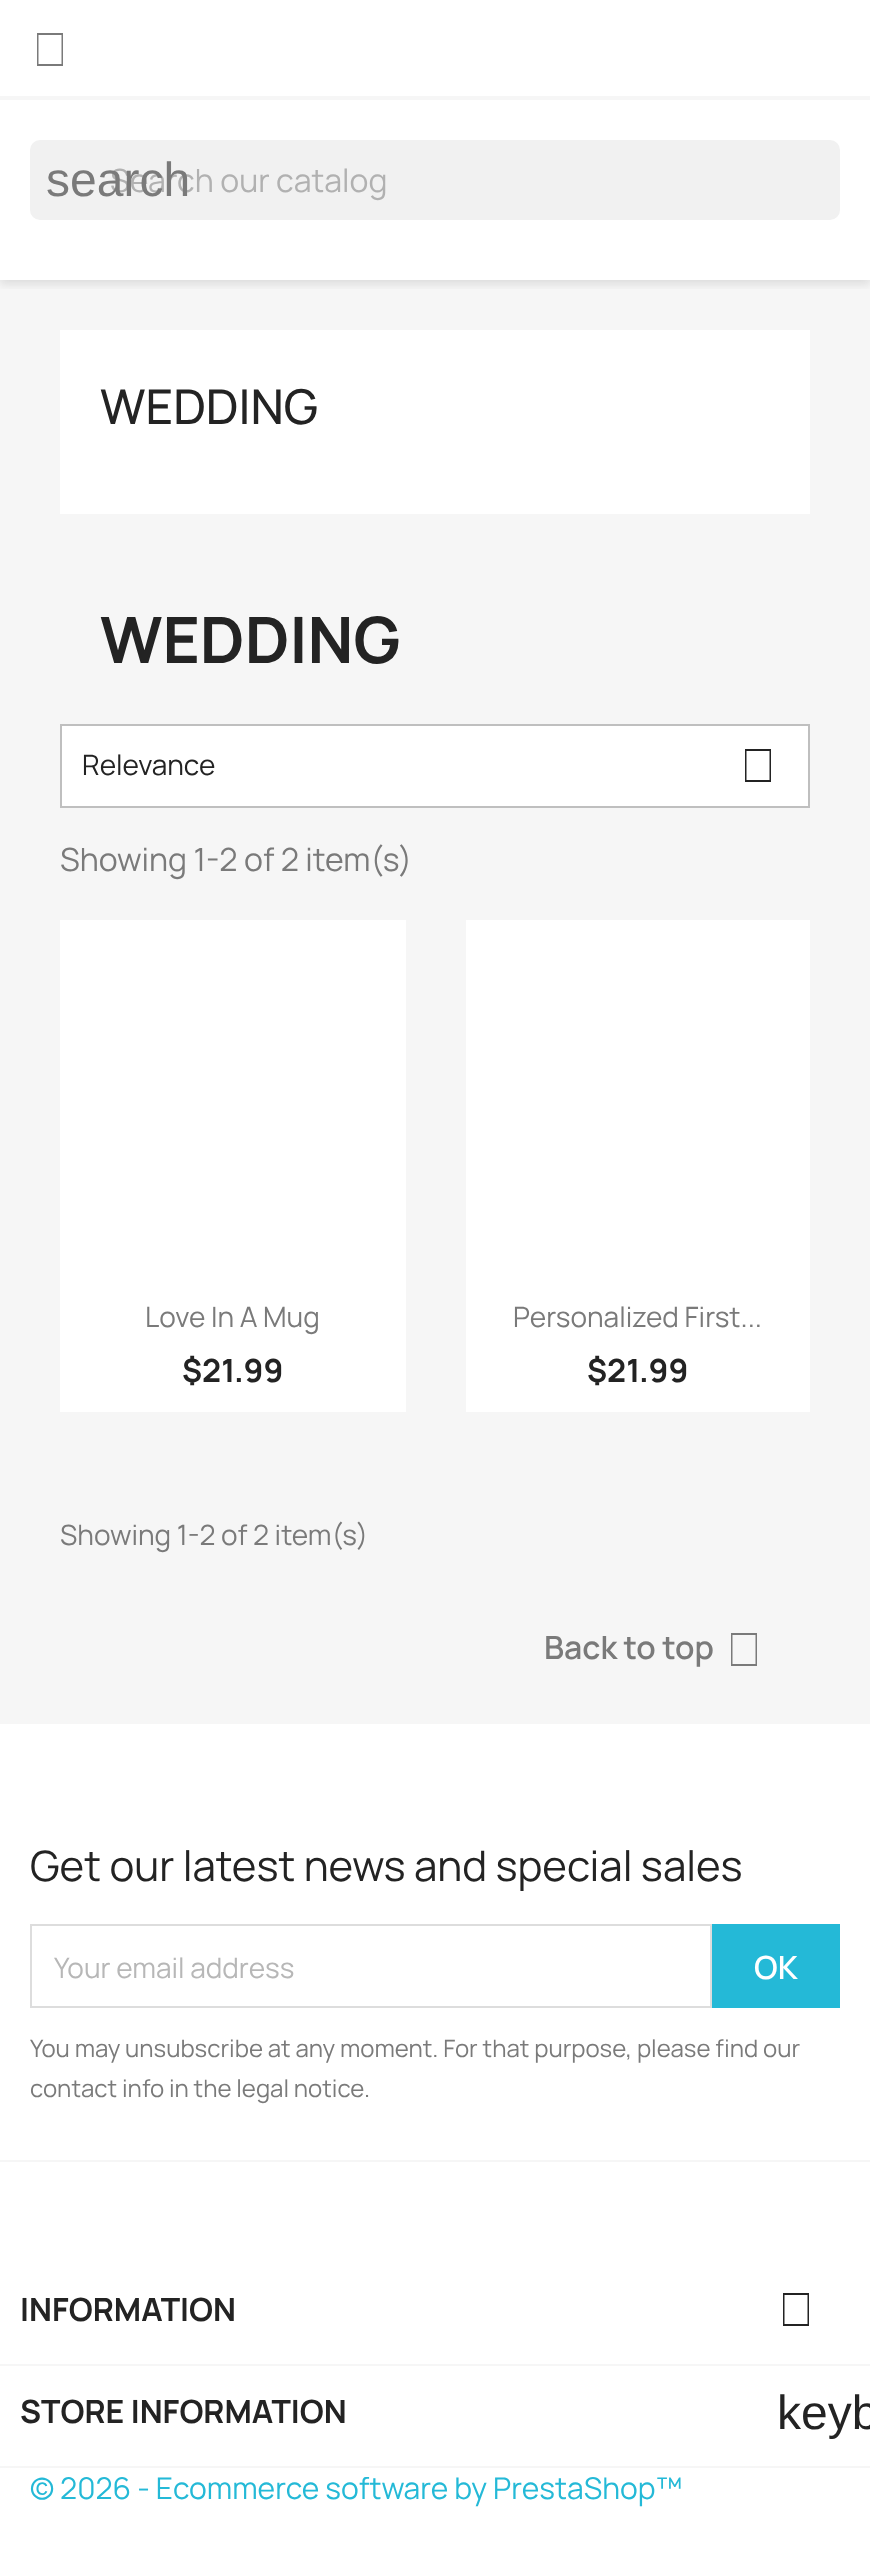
<?xml version="1.0" encoding="UTF-8"?>
<svg xmlns="http://www.w3.org/2000/svg" width="870" height="2561">
    <defs>
        <clipPath id="clip1"><rect x="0" y="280" width="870" height="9"/></clipPath>
        <filter id="blur1" x="-50%" y="-200%" width="200%" height="500%"><feGaussianBlur stdDeviation="5"/></filter>
    </defs>
    <rect width="100%" height="100%" fill="#FFFFFF"/>
    <rect x="0" y="280" width="870" height="1444" fill="#F6F6F6"/>
    <g clip-path="url(#clip1)">
        <rect x="0" y="4" width="870" height="280" fill="#000000" fill-opacity="0.11" filter="url(#blur1)"/>
    </g>
    <rect x="0" y="96" width="870" height="4" fill="#F6F6F6"/>
    <path d="M 37 33 H 63 V 66 H 37 Z M 38.5 35 V 64 H 61.5 V 35 Z" fill="#7A7A7A"/>
    <rect x="30" y="140" width="810" height="80" rx="10" fill="#F1F1F1"/>
    <text x="110" y="192" font-family="Manrope" font-size="32" fill="#B1B1B1">Search our catalog</text>
    <text x="46" y="196" font-family="Liberation Sans" font-size="48" fill="#7A7A7A">search</text>
    <rect x="60" y="330" width="750" height="184" fill="#FFFFFF"/>
    <text x="100" y="424" font-family="Manrope" font-size="48" font-weight="500" fill="#232323">WEDDING</text>
    <text x="100" y="663" font-family="Manrope" font-size="64" font-weight="700" fill="#232323">WEDDING</text>
    <rect x="61" y="725" width="748" height="82" fill="#FFFFFF" stroke="#BFBFBF" stroke-width="2"/>
    <text x="82" y="775" font-family="Manrope" font-size="28" fill="#232323">Relevance</text>
    <path d="M 745 749 H 771 V 782 H 745 Z M 746.5 751 V 780 H 769.5 V 751 Z" fill="#232323"/>
    <text x="60" y="871" font-family="Manrope" font-size="32" fill="#7A7A7A">Showing 1-2 of 2 item(s)</text>
    <rect x="60" y="920" width="346" height="492" fill="#FFFFFF"/>
    <text x="145" y="1327" font-family="Manrope" font-size="28" fill="#7A7A7A">Love In A Mug</text>
    <text x="182" y="1382" font-family="Manrope" font-size="32" font-weight="700" fill="#232323">$21.99</text>
    <rect x="466" y="920" width="344" height="492" fill="#FFFFFF"/>
    <text x="513" y="1327" font-family="Manrope" font-size="28" fill="#7A7A7A">Personalized First...</text>
    <text x="587" y="1382" font-family="Manrope" font-size="32" font-weight="700" fill="#232323">$21.99</text>
    <text x="60" y="1545" font-family="Manrope" font-size="28" fill="#7A7A7A">Showing 1-2 of 2 item(s)</text>
    <text x="544" y="1659" font-family="Manrope" font-size="32" font-weight="600" fill="#7A7A7A">Back to top</text>
    <path d="M 731 1633 H 757 V 1666 H 731 Z M 732.5 1635 V 1664 H 755.5 V 1635 Z" fill="#7A7A7A"/>
    <rect x="0" y="2160" width="870" height="2" fill="#F6F6F6"/>
    <text x="30" y="1881" font-family="Manrope" font-size="42" fill="#232323">Get our latest news and special sales</text>
    <rect x="31" y="1925" width="680" height="82" fill="none" stroke="#DDDDDD" stroke-width="2"/>
    <text x="54" y="1978" font-family="Manrope" font-size="28" fill="#B7B7B7">Your email address</text>
    <rect x="712" y="1924" width="128" height="84" fill="#24B9D7"/>
    <text x="754" y="1979" font-family="Manrope" font-size="32" font-weight="600" fill="#FFFFFF">OK</text>
    <text font-family="Manrope" font-size="24" fill="#7A7A7A">
        <tspan x="30" y="2057">You may unsubscribe at any moment. For that purpose, please find our</tspan>
        <tspan x="30" y="2097">contact info in the legal notice.</tspan>
    </text>
    <rect x="0" y="2364" width="870" height="2" fill="#F6F6F6"/>
    <text x="20" y="2321" font-family="Manrope" font-size="32" font-weight="700" fill="#232323">INFORMATION</text>
    <path d="M 783 2293 H 809 V 2326 H 783 Z M 784.5 2295 V 2324 H 807.5 V 2295 Z" fill="#232323"/>
    <rect x="0" y="2466" width="870" height="2" fill="#F6F6F6"/>
    <text x="20" y="2423" font-family="Manrope" font-size="32" font-weight="700" fill="#232323">STORE INFORMATION</text>
    <text x="777" y="2429" font-family="Liberation Sans" font-size="48" fill="#232323">keyb</text>
    <text x="30" y="2499" font-family="Manrope" font-size="30" fill="#24B9D7">© 2026 - Ecommerce software by PrestaShop™</text>
</svg>
